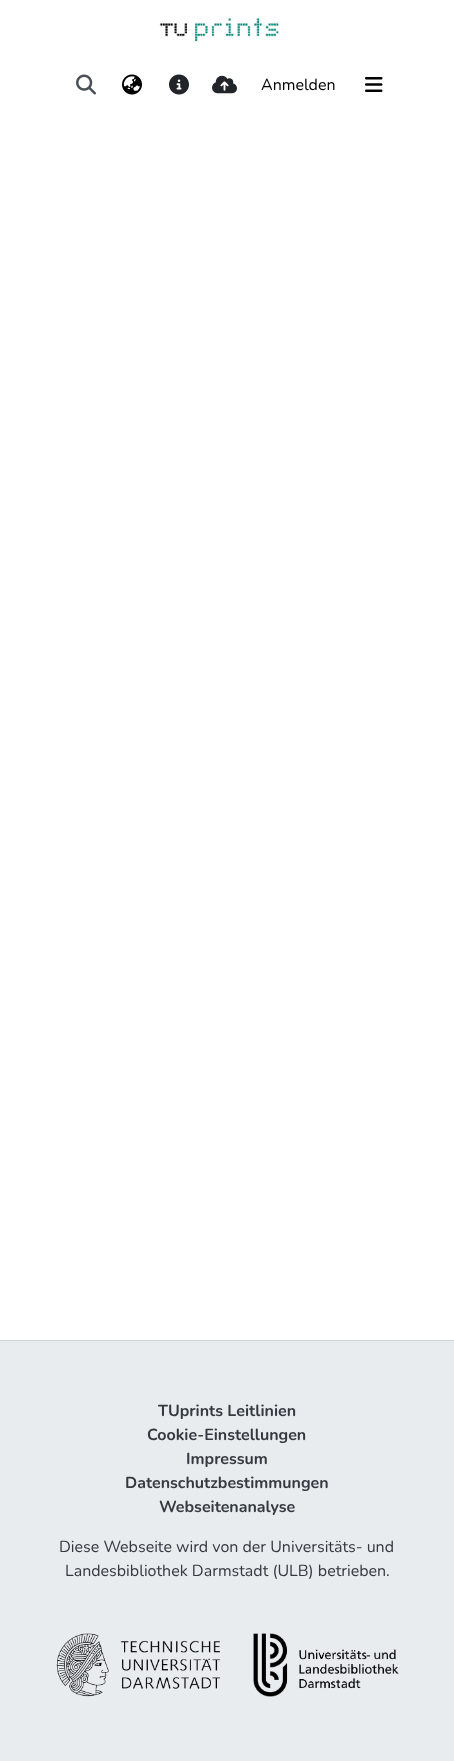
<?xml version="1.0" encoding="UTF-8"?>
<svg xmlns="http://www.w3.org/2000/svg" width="454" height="1761">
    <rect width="100%" height="100%" fill="#FFFFFF"/>
    <image x="159" y="17" width="120" height="25" href="img_01.png"/>
    <image x="76" y="74" width="20" height="21" href="img_02.png"/>
    <image x="122" y="74" width="20" height="21" href="img_03.png"/>
    <image x="169" y="74" width="20" height="21" href="img_04.png"/>
    <image x="212" y="75" width="25" height="19" href="img_05.png"/>
    <text x="261" y="90" font-family="Nunito" font-size="16" fill="#000000">Anmelden</text>
    <image x="365" y="77" width="18" height="15" href="img_06.png"/>
    <rect x="0" y="1341" width="454" height="420" fill="#E9ECEF"/>
    <rect x="0" y="1340" width="454" height="1" fill="#CED4DA"/>
    <text x="158" y="1416" font-family="Nunito" font-size="16" font-weight="700" fill="#343A40">TUprints Leitlinien</text>
    <text x="147" y="1440" font-family="Nunito" font-size="16" font-weight="700" fill="#343A40">Cookie-Einstellungen</text>
    <text x="186" y="1464" font-family="Nunito" font-size="16" font-weight="700" fill="#343A40">Impressum</text>
    <text x="125" y="1488" font-family="Nunito" font-size="16" font-weight="700" fill="#343A40">Datenschutzbestimmungen</text>
    <text x="159" y="1512" font-family="Nunito" font-size="16" font-weight="700" fill="#343A40">Webseitenanalyse</text>
    <text x="59" y="1552" font-family="Nunito" font-size="16" fill="#343A40">Diese Webseite wird von der Universitäts- und</text>
    <text x="65" y="1576" font-family="Nunito" font-size="16" fill="#343A40">Landesbibliothek Darmstadt (ULB) betrieben.</text>
    <image x="56" y="1633" width="165" height="64" href="img_07.png"/>
    <image x="253" y="1633" width="146" height="64" href="img_08.png"/>
</svg>
